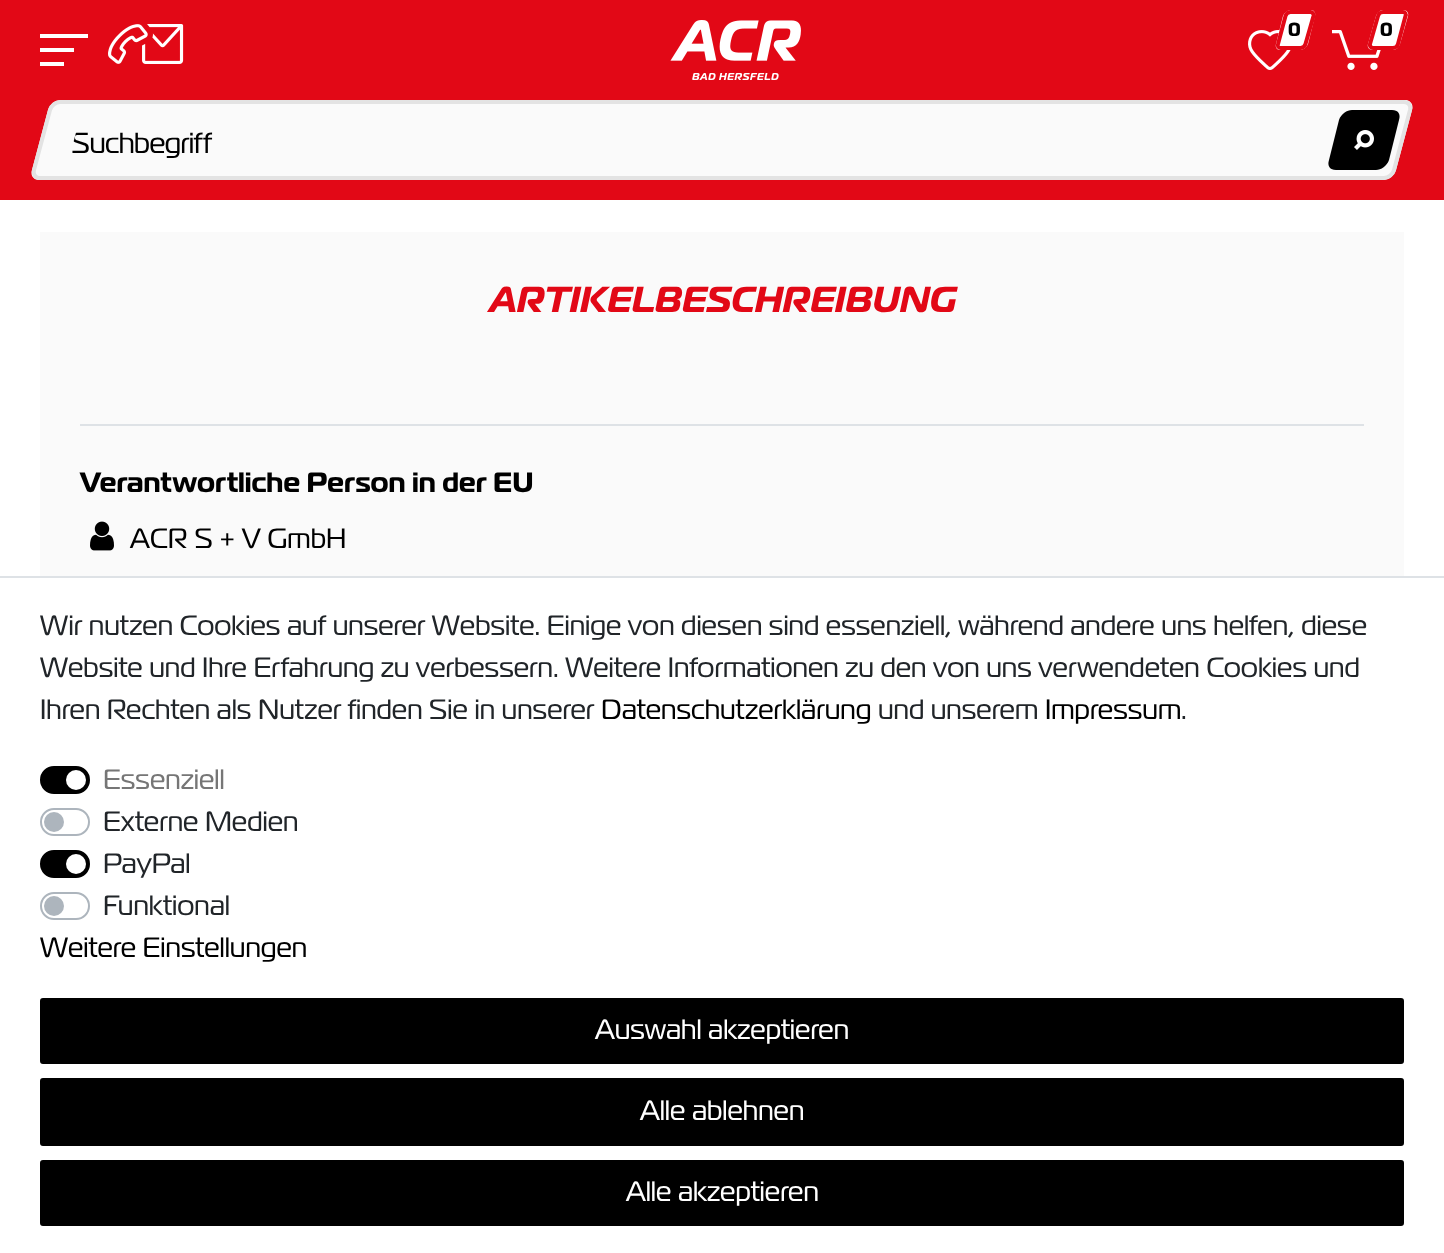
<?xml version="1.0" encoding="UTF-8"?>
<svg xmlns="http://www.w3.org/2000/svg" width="1444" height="1253">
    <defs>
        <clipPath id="clip1"><path d="M 78 125 H 1292 L 1282.5 161 H 68.5 Z"/></clipPath>
    </defs>
    <rect width="100%" height="100%" fill="#FFFFFF"/>
    <rect x="0" y="0" width="1444" height="200" fill="#E20816"/>
    <rect x="40" y="48" width="34" height="4" fill="#FFFFFF"/>
    <rect x="40" y="34" width="48" height="4" fill="#FFFFFF"/>
    <rect x="40" y="62" width="24" height="4" fill="#FFFFFF"/>
    <image x="108" y="24" width="76" height="40" href="img_01.png"/>
    <image x="670" y="20" width="131" height="60" href="img_02.png"/>
    <image x="1248" y="30" width="43" height="40" href="img_03.png"/>
    <path d="M 1291 10 H 1311 C 1314 10 1316 13 1315 16 L 1308 44 C 1307 47 1303 50 1300 50 H 1280 C 1277 50 1275 47 1276 44 L 1283 16 C 1284 13 1288 10 1291 10 Z" fill="#FFFFFF"/>
    <path d="M 1290.5 12 H 1310.5 C 1312.5 12 1314 14 1313.5 16 L 1305.5 44 C 1305 46 1303 48 1300.5 48 H 1280.5 C 1278.5 48 1277 46 1278 44 L 1285.5 16 C 1286 14 1288 12 1290.5 12 Z" fill="none" stroke="#E20816" stroke-width="4"/>
    <text x="1288" y="36" font-family="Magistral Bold" font-size="19" font-weight="700" fill="#000000">0</text>
    <image x="1332" y="30" width="49" height="40" href="img_04.png"/>
    <path d="M 1383 10 H 1403 C 1407 10 1409 13 1408 16 L 1400 44 C 1399 47 1396 50 1393 50 H 1373 C 1369 50 1367 47 1368 44 L 1376 16 C 1377 13 1380 10 1383 10 Z" fill="#FFFFFF"/>
    <path d="M 1383 12 H 1403 C 1405 12 1406.5 14 1405.5 16 L 1398 44 C 1397.5 46 1395.5 48 1393 48 H 1373 C 1371 48 1369.5 46 1370 44 L 1378 16 C 1378.5 14 1380.5 12 1383 12 Z" fill="none" stroke="#E20816" stroke-width="4"/>
    <text x="1380" y="36" font-family="Magistral Bold" font-size="19" font-weight="700" fill="#000000">0</text>
    <path d="M 61 100 H 1405 C 1410 100 1414 104 1412 110 L 1396 170 C 1394 176 1389 180 1383 180 H 39 C 34 180 30 176 32 170 L 48 110 C 50 104 55 100 61 100 Z" fill="#FAFAFA"/>
    <path d="M 60 102 H 1404 C 1408.5 102 1411 105.5 1410 110 L 1394 170 C 1393 174.5 1388 178 1384 178 H 40 C 35.5 178 33 174.5 34 170 L 50 110 C 51 105.5 56 102 60 102 Z" fill="none" stroke="#E3E3E3" stroke-width="4"/>
    <g clip-path="url(#clip1)">
        <text x="71" y="153" font-family="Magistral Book" font-size="29" letter-spacing="-0.5" fill="#000000">Suchbegriff</text>
    </g>
    <path d="M 1352 110 H 1392 C 1398 110 1401 114 1399 120 L 1389 160 C 1387 166 1381 170 1376 170 H 1336 C 1330 170 1327 166 1329 160 L 1339 120 C 1341 114 1347 110 1352 110 Z" fill="#000000"/>
    <image x="1354" y="130" width="20" height="20" href="img_05.png"/>
    <rect x="40" y="232" width="1364" height="344" fill="#FAFAFA"/>
    <text x="489" y="312" font-family="Magistral Bold" font-size="36" font-weight="700" font-style="italic" fill="#E20816">ARTIKELBESCHREIBUNG</text>
    <rect x="80" y="424" width="1284" height="2" fill="#DEE2E6"/>
    <text x="80" y="492" font-family="Magistral Bold" font-size="28" font-weight="700" fill="#000000">Verantwortliche Person in der EU</text>
    <image x="90" y="521" width="24" height="30" href="img_06.png"/>
    <text x="130" y="548" font-family="Magistral Book" font-size="28" fill="#000000">ACR S + V GmbH</text>
    <rect x="0" y="576" width="1444" height="2" fill="#DEE2E6"/>
    <text font-family="Magistral Book" font-size="28" fill="#212529">
        <tspan x="40" y="635">Wir nutzen Cookies auf unserer Website. Einige von diesen sind essenziell, während andere uns helfen, diese</tspan>
        <tspan x="40" y="677">Website und Ihre Erfahrung zu verbessern. Weitere Informationen zu den von uns verwendeten Cookies und</tspan>
        <tspan x="40" y="719">Ihren Rechten als Nutzer finden Sie in unserer</tspan>
    </text>
    <text x="601" y="719" font-family="Magistral Book" font-size="28" fill="#000000">Datenschutzerklärung</text>
    <text x="878" y="719" font-family="Magistral Book" font-size="28" fill="#212529">und unserem</text>
    <text x="1045" y="719" font-family="Magistral Book" font-size="28" fill="#000000">Impressum</text>
    <text x="1181" y="719" font-family="Magistral Book" font-size="28" fill="#212529">.</text>
    <rect x="41" y="767" width="48" height="26" rx="13" fill="#000000" stroke="#000000" stroke-width="2"/>
    <text x="103" y="789" font-family="Magistral Book" font-size="28" fill="#767676">Essenziell</text>
    <circle cx="76" cy="780" r="10" fill="#FFFFFF"/>
    <rect x="41" y="809" width="48" height="26" rx="13" fill="none" stroke="#ADB5BD" stroke-width="2"/>
    <text x="103" y="831" font-family="Magistral Book" font-size="28" fill="#212529">Externe Medien</text>
    <circle cx="54" cy="822" r="10" fill="#ADB5BD"/>
    <rect x="41" y="851" width="48" height="26" rx="13" fill="#000000" stroke="#000000" stroke-width="2"/>
    <text x="103" y="873" font-family="Magistral Book" font-size="28" fill="#212529">PayPal</text>
    <circle cx="76" cy="864" r="10" fill="#FFFFFF"/>
    <rect x="41" y="893" width="48" height="26" rx="13" fill="none" stroke="#ADB5BD" stroke-width="2"/>
    <text x="103" y="915" font-family="Magistral Book" font-size="28" fill="#212529">Funktional</text>
    <circle cx="54" cy="906" r="10" fill="#ADB5BD"/>
    <text x="40" y="957" font-family="Magistral Book" font-size="28" fill="#000000">Weitere Einstellungen</text>
    <rect x="41" y="999" width="1362" height="64" rx="2" fill="#000000" stroke="#000000" stroke-width="2"/>
    <text x="595" y="1039" font-family="Magistral Book" font-size="28" fill="#FFFFFF">Auswahl akzeptieren</text>
    <rect x="41" y="1079" width="1362" height="66" rx="2" fill="#000000" stroke="#000000" stroke-width="2"/>
    <text x="640" y="1120" font-family="Magistral Book" font-size="28" fill="#FFFFFF">Alle ablehnen</text>
    <rect x="41" y="1161" width="1362" height="64" rx="2" fill="#000000" stroke="#000000" stroke-width="2"/>
    <text x="626" y="1201" font-family="Magistral Book" font-size="28" fill="#FFFFFF">Alle akzeptieren</text>
</svg>
